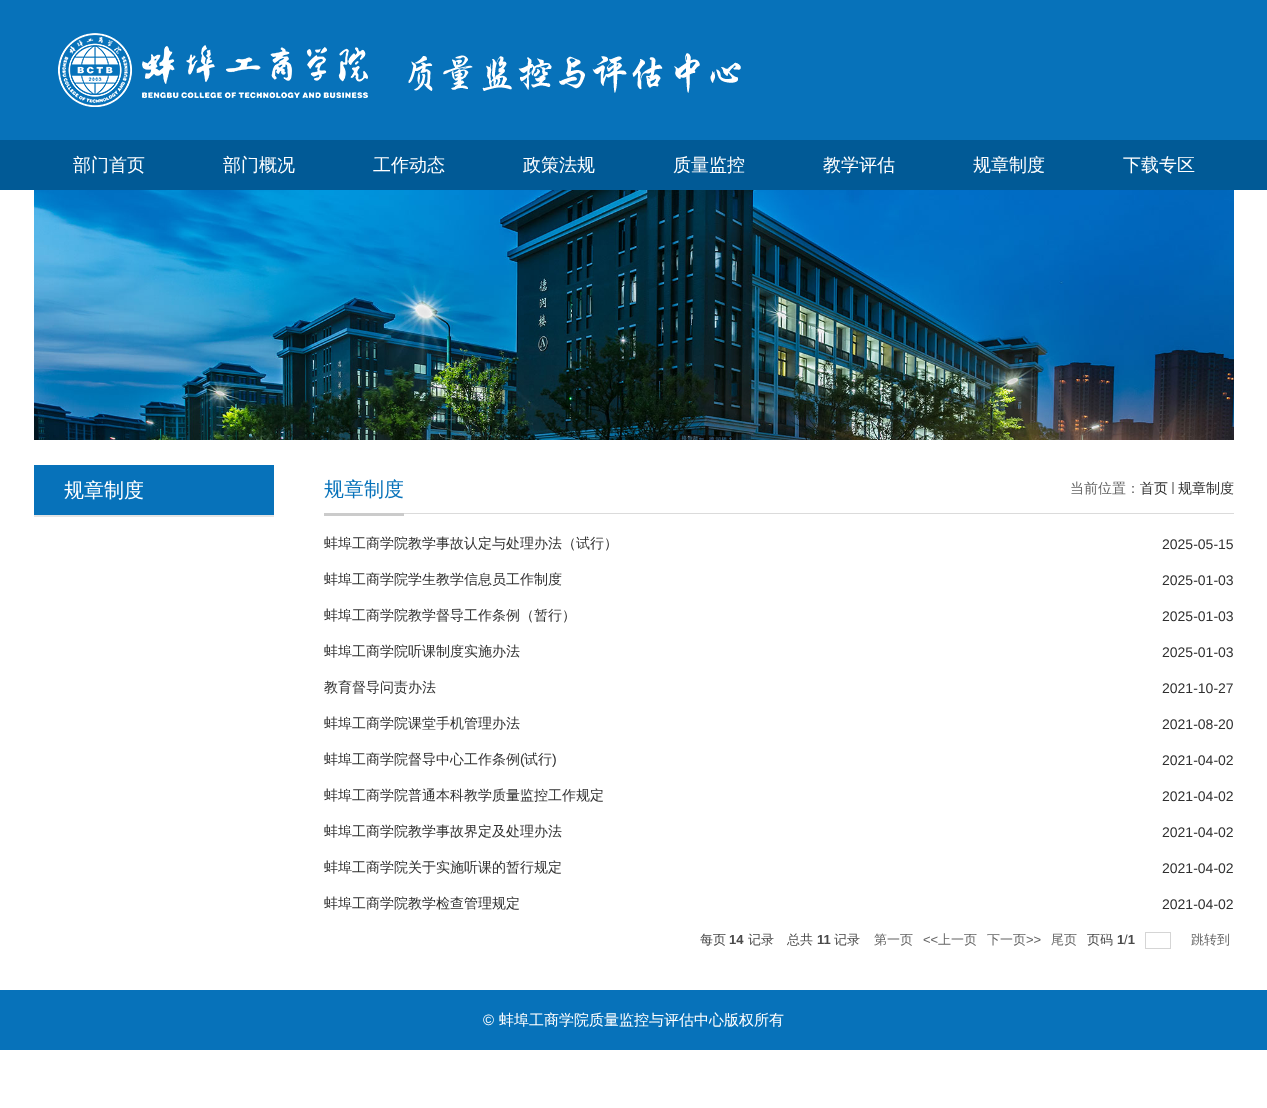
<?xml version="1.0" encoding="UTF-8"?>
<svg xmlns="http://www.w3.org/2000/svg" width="1267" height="1108">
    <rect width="100%" height="100%" fill="#FFFFFF"/>
    <rect x="0" y="0" width="1267" height="140" fill="#0772BA"/>
    <image x="58" y="33" width="683" height="74" href="img_01.png"/>
    <rect x="0" y="140" width="1267" height="50" fill="#015A96"/>
    <text x="73" y="171" font-family="WenQuanYi Zen Hei" font-size="18" font-weight="500" fill="#FFFFFF">部门首页</text>
    <text x="223" y="171" font-family="WenQuanYi Zen Hei" font-size="18" font-weight="500" fill="#FFFFFF">部门概况</text>
    <text x="373" y="171" font-family="WenQuanYi Zen Hei" font-size="18" font-weight="500" fill="#FFFFFF">工作动态</text>
    <text x="523" y="171" font-family="WenQuanYi Zen Hei" font-size="18" font-weight="500" fill="#FFFFFF">政策法规</text>
    <text x="673" y="171" font-family="WenQuanYi Zen Hei" font-size="18" font-weight="500" fill="#FFFFFF">质量监控</text>
    <text x="823" y="171" font-family="WenQuanYi Zen Hei" font-size="18" font-weight="500" fill="#FFFFFF">教学评估</text>
    <text x="973" y="171" font-family="WenQuanYi Zen Hei" font-size="18" font-weight="500" fill="#FFFFFF">规章制度</text>
    <text x="1123" y="171" font-family="WenQuanYi Zen Hei" font-size="18" font-weight="500" fill="#FFFFFF">下载专区</text>
    <image x="34" y="190" width="1200" height="250" href="img_02.png"/>
    <rect x="34" y="465" width="240" height="50" fill="#0772BA"/>
    <text x="64" y="497" font-family="WenQuanYi Zen Hei" font-size="20" font-weight="500" fill="#FFFFFF">规章制度</text>
    <rect x="34" y="515" width="240" height="2" fill="#E4E4E4"/>
    <rect x="404" y="513" width="830" height="1" fill="#DBDBDB"/>
    <rect x="324" y="513" width="80" height="3" fill="#CBCBCB"/>
    <text x="324" y="496" font-family="WenQuanYi Zen Hei" font-size="20" font-weight="500" fill="#0772BA">规章制度</text>
    <text x="1070" y="493" font-family="WenQuanYi Zen Hei" font-size="14" font-weight="500" fill="#666666">当前位置：</text>
    <text x="1140" y="493" font-family="WenQuanYi Zen Hei" font-size="14" font-weight="500" fill="#2F2F2F">首页</text>
    <rect x="1172" y="482" width="2" height="12" fill="#A2A2A2"/>
    <text x="1178" y="493" font-family="WenQuanYi Zen Hei" font-size="14" font-weight="500" fill="#2F2F2F">规章制度</text>
    <text x="324" y="548" font-family="WenQuanYi Zen Hei" font-size="14" font-weight="500" fill="#2F2F2F">蚌埠工商学院教学事故认定与处理办法（试行）</text>
    <text x="1162" y="549" font-family="Liberation Sans" font-size="14" fill="#2F2F2F">2025-05-15</text>
    <text x="324" y="584" font-family="WenQuanYi Zen Hei" font-size="14" font-weight="500" fill="#2F2F2F">蚌埠工商学院学生教学信息员工作制度</text>
    <text x="1162" y="585" font-family="Liberation Sans" font-size="14" fill="#2F2F2F">2025-01-03</text>
    <text x="324" y="620" font-family="WenQuanYi Zen Hei" font-size="14" font-weight="500" fill="#2F2F2F">蚌埠工商学院教学督导工作条例（暂行）</text>
    <text x="1162" y="621" font-family="Liberation Sans" font-size="14" fill="#2F2F2F">2025-01-03</text>
    <text x="324" y="656" font-family="WenQuanYi Zen Hei" font-size="14" font-weight="500" fill="#2F2F2F">蚌埠工商学院听课制度实施办法</text>
    <text x="1162" y="657" font-family="Liberation Sans" font-size="14" fill="#2F2F2F">2025-01-03</text>
    <text x="324" y="692" font-family="WenQuanYi Zen Hei" font-size="14" font-weight="500" fill="#2F2F2F">教育督导问责办法</text>
    <text x="1162" y="693" font-family="Liberation Sans" font-size="14" fill="#2F2F2F">2021-10-27</text>
    <text x="324" y="728" font-family="WenQuanYi Zen Hei" font-size="14" font-weight="500" fill="#2F2F2F">蚌埠工商学院课堂手机管理办法</text>
    <text x="1162" y="729" font-family="Liberation Sans" font-size="14" fill="#2F2F2F">2021-08-20</text>
    <text x="324" y="764" font-family="WenQuanYi Zen Hei" font-size="14" font-weight="500" fill="#2F2F2F">蚌埠工商学院督导中心工作条例</text>
    <text x="520" y="764" font-family="Liberation Sans" font-size="14" fill="#2F2F2F">(</text>
    <text x="524" y="764" font-family="WenQuanYi Zen Hei" font-size="14" font-weight="500" fill="#2F2F2F">试行</text>
    <text x="552" y="764" font-family="Liberation Sans" font-size="14" fill="#2F2F2F">)</text>
    <text x="1162" y="765" font-family="Liberation Sans" font-size="14" fill="#2F2F2F">2021-04-02</text>
    <text x="324" y="800" font-family="WenQuanYi Zen Hei" font-size="14" font-weight="500" fill="#2F2F2F">蚌埠工商学院普通本科教学质量监控工作规定</text>
    <text x="1162" y="801" font-family="Liberation Sans" font-size="14" fill="#2F2F2F">2021-04-02</text>
    <text x="324" y="836" font-family="WenQuanYi Zen Hei" font-size="14" font-weight="500" fill="#2F2F2F">蚌埠工商学院教学事故界定及处理办法</text>
    <text x="1162" y="837" font-family="Liberation Sans" font-size="14" fill="#2F2F2F">2021-04-02</text>
    <text x="324" y="872" font-family="WenQuanYi Zen Hei" font-size="14" font-weight="500" fill="#2F2F2F">蚌埠工商学院关于实施听课的暂行规定</text>
    <text x="1162" y="873" font-family="Liberation Sans" font-size="14" fill="#2F2F2F">2021-04-02</text>
    <text x="324" y="908" font-family="WenQuanYi Zen Hei" font-size="14" font-weight="500" fill="#2F2F2F">蚌埠工商学院教学检查管理规定</text>
    <text x="1162" y="909" font-family="Liberation Sans" font-size="14" fill="#2F2F2F">2021-04-02</text>
    <text x="700" y="944" font-family="WenQuanYi Zen Hei" font-size="13" font-weight="500" fill="#494949">每页</text>
    <text x="729" y="944" font-family="Liberation Sans" font-size="13" font-weight="700" fill="#494949">14</text>
    <text x="748" y="944" font-family="WenQuanYi Zen Hei" font-size="13" font-weight="500" fill="#494949">记录</text>
    <text x="787" y="944" font-family="WenQuanYi Zen Hei" font-size="13" font-weight="500" fill="#494949">总共</text>
    <text x="817" y="944" font-family="Liberation Sans" font-size="13" font-weight="700" fill="#494949">11</text>
    <text x="834" y="944" font-family="WenQuanYi Zen Hei" font-size="13" font-weight="500" fill="#494949">记录</text>
    <text x="874" y="944" font-family="WenQuanYi Zen Hei" font-size="13" font-weight="500" fill="#666666">第一页</text>
    <text x="923" y="944" font-family="Liberation Sans" font-size="13" fill="#666666">&lt;&lt;</text>
    <text x="938" y="944" font-family="WenQuanYi Zen Hei" font-size="13" font-weight="500" fill="#666666">上一页</text>
    <text x="987" y="944" font-family="WenQuanYi Zen Hei" font-size="13" font-weight="500" fill="#666666">下一页</text>
    <text x="1026" y="944" font-family="Liberation Sans" font-size="13" fill="#666666">&gt;&gt;</text>
    <text x="1051" y="944" font-family="WenQuanYi Zen Hei" font-size="13" font-weight="500" fill="#666666">尾页</text>
    <text x="1087" y="944" font-family="WenQuanYi Zen Hei" font-size="13" font-weight="500" fill="#494949">页码</text>
    <text x="1117" y="944" font-family="Liberation Sans" font-size="13" font-weight="700" fill="#494949">1 1</text>
    <text x="1124" y="944" font-family="Liberation Sans" font-size="13" fill="#494949">/</text>
    <rect x="1145.5" y="932.5" width="25" height="16" fill="none" stroke="#D5D5D5"/>
    <text x="1191" y="944" font-family="WenQuanYi Zen Hei" font-size="13" font-weight="500" fill="#666666">跳转到</text>
    <rect x="0" y="990" width="1267" height="60" fill="#0772BA"/>
    <text x="483" y="1025" font-family="Liberation Sans" font-size="15" fill="#FFFFFF">©</text>
    <text x="499" y="1025" font-family="WenQuanYi Zen Hei" font-size="15" font-weight="500" fill="#FFFFFF">蚌埠工商学院质量监控与评估中心版权所有</text>
</svg>
